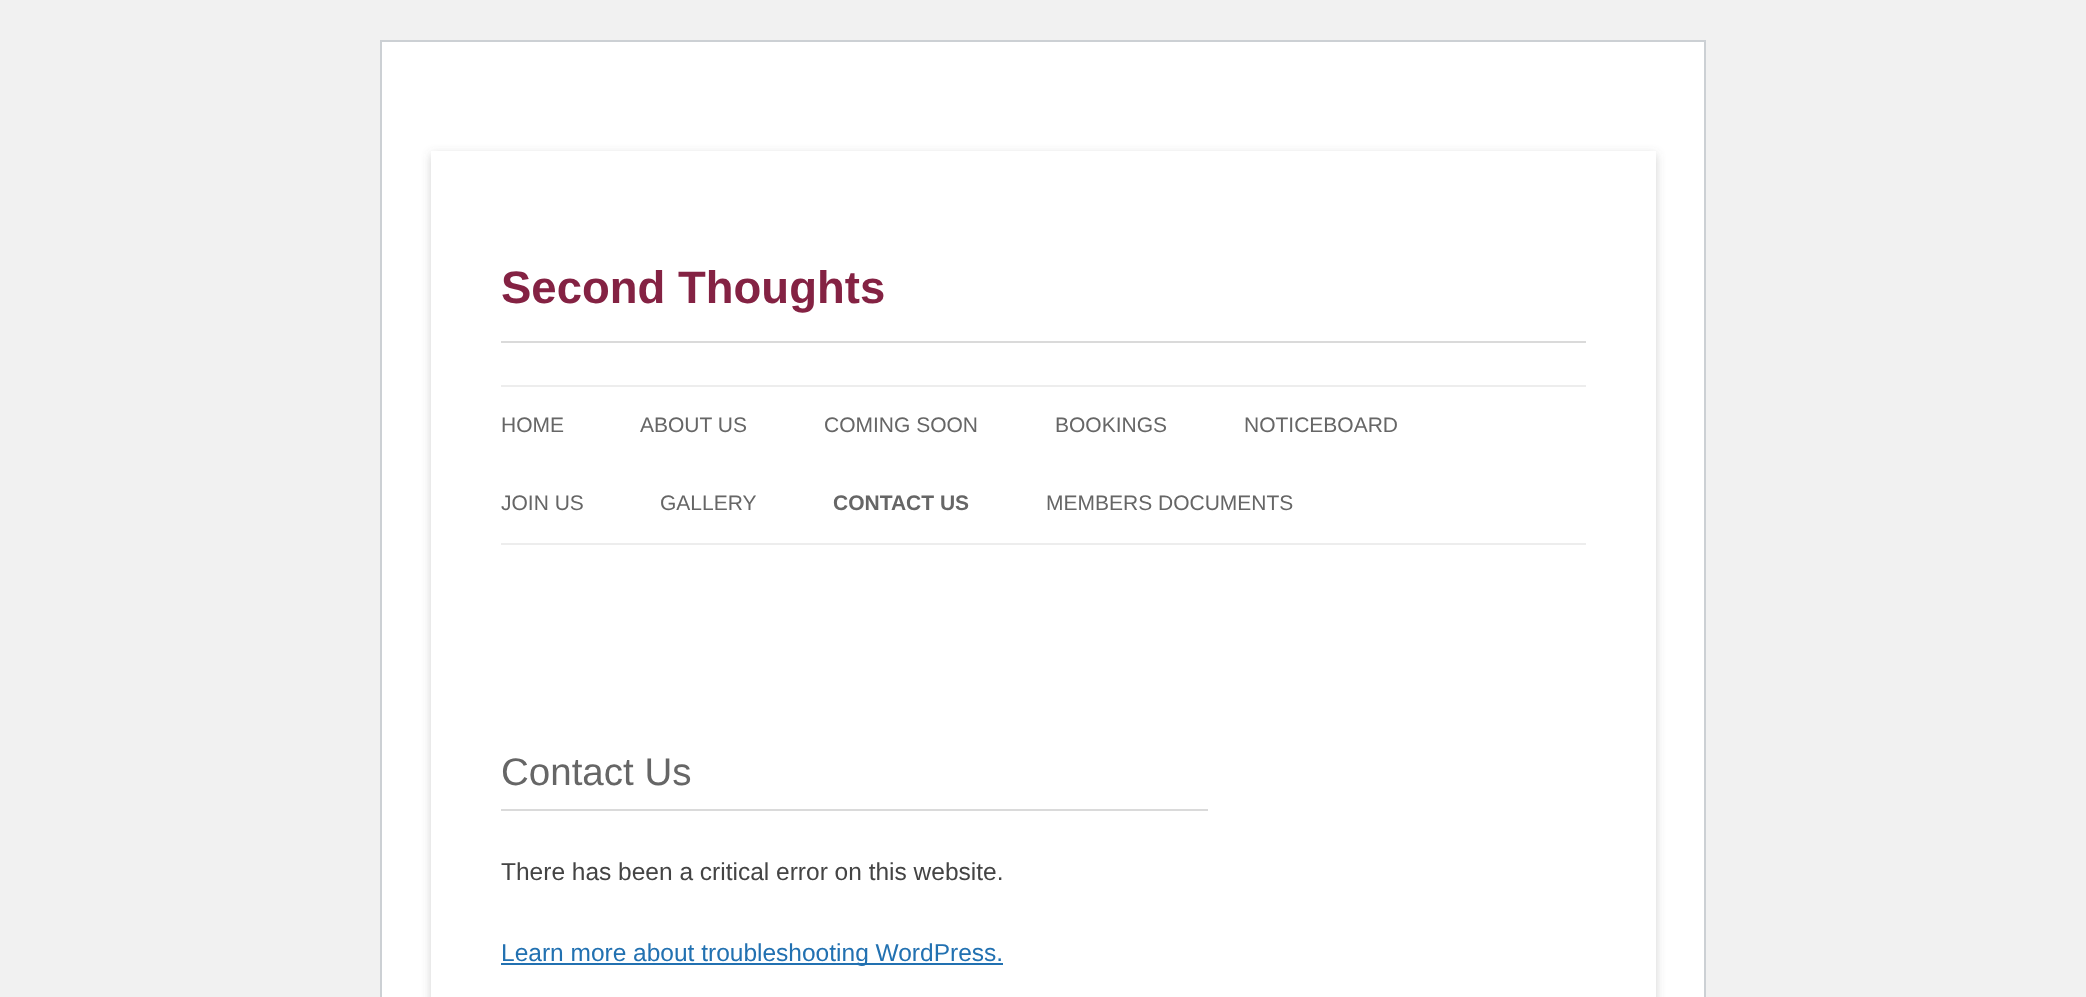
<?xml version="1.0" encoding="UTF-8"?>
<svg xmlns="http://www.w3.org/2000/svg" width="2086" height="997">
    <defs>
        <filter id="blur1" x="-50%" y="-200%" width="200%" height="500%"><feGaussianBlur stdDeviation="5"/></filter>
    </defs>
    <rect width="100%" height="100%" fill="#F1F1F1"/>
    <rect x="381" y="41" width="1324" height="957" fill="#FFFFFF" stroke="#CCD0D4" stroke-width="2"/>
    <rect x="431" y="154" width="1225" height="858" fill="#646464" fill-opacity="0.3" filter="url(#blur1)"/>
    <rect x="431" y="151" width="1225" height="846" fill="#FFFFFF"/>
    <rect x="501" y="341" width="1085" height="2" fill="#DADADA"/>
    <text x="501" y="303" font-family="Liberation Sans" font-size="45.5" font-weight="700" fill="#842243">Second Thoughts</text>
    <rect x="501" y="385" width="1085" height="2" fill="#EDEDED"/>
    <rect x="501" y="543" width="1085" height="2" fill="#EDEDED"/>
    <text x="501" y="432" font-family="Liberation Sans" font-size="21" fill="#666666">HOME</text>
    <text x="640" y="432" font-family="Liberation Sans" font-size="21" fill="#666666">ABOUT US</text>
    <text x="824" y="432" font-family="Liberation Sans" font-size="21" fill="#666666">COMING SOON</text>
    <text x="1055" y="432" font-family="Liberation Sans" font-size="21" fill="#666666">BOOKINGS</text>
    <text x="1244" y="432" font-family="Liberation Sans" font-size="21" fill="#666666">NOTICEBOARD</text>
    <text x="501" y="510" font-family="Liberation Sans" font-size="21" fill="#666666">JOIN US</text>
    <text x="660" y="510" font-family="Liberation Sans" font-size="21" fill="#666666">GALLERY</text>
    <text x="833" y="510" font-family="Liberation Sans" font-size="21" font-weight="700" fill="#666666">CONTACT US</text>
    <text x="1046" y="510" font-family="Liberation Sans" font-size="21" fill="#666666">MEMBERS DOCUMENTS</text>
    <rect x="501" y="809" width="707" height="2" fill="#DADADA"/>
    <text x="501" y="785" font-family="Liberation Sans" font-size="38.5" fill="#666666">Contact Us</text>
    <text x="501" y="880" font-family="Liberation Sans" font-size="24.5" fill="#444444">There has been a critical error on this website.</text>
    <rect x="501" y="963" width="502" height="2" fill="#2271B1"/>
    <text x="501" y="961" font-family="Liberation Sans" font-size="24.5" fill="#2271B1">Learn more about troubleshooting WordPress.</text>
</svg>
